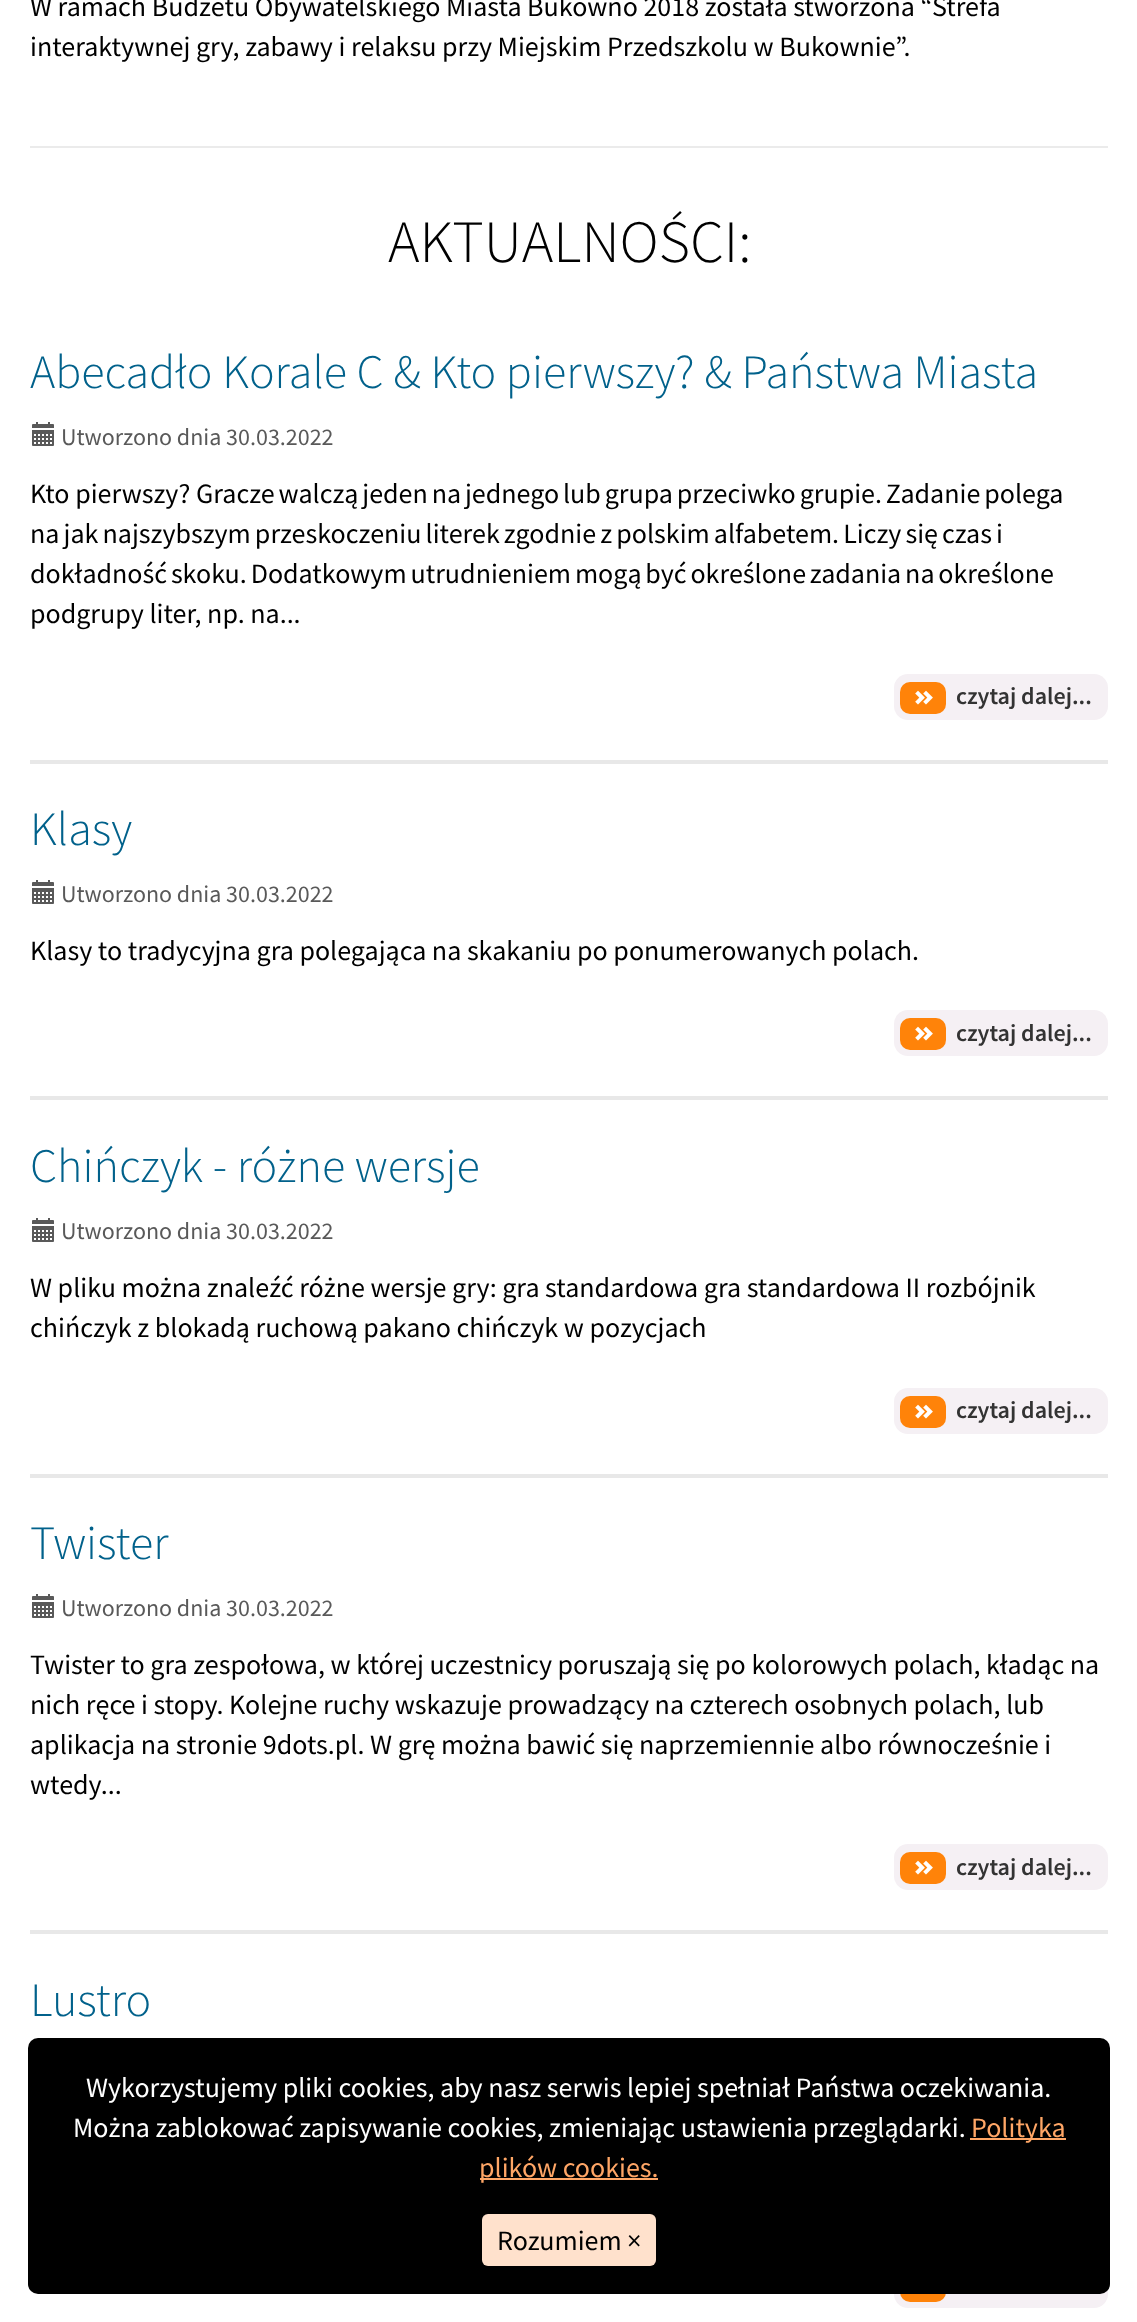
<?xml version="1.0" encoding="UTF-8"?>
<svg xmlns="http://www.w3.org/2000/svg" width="1137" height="2322">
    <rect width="100%" height="100%" fill="#FFFFFF"/>
    <text font-family="Source Sans Pro" font-size="28" fill="#000000">
        <tspan x="30" y="16">W ramach Budżetu Obywatelskiego Miasta Bukowno 2018 została stworzona “Strefa</tspan>
        <tspan x="30" y="56">interaktywnej gry, zabawy i relaksu przy Miejskim Przedszkolu w Bukownie”.</tspan>
    </text>
    <rect x="30" y="146" width="1078" height="2" fill="#EBEBEB"/>
    <text x="388" y="262" font-family="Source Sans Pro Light" font-size="60" font-weight="300" fill="#000000">AKTUALNOŚCI:</text>
    <text x="30" y="388" font-family="Source Sans Pro Light" font-size="48" font-weight="300" fill="#01618B">Abecadło Korale C &amp; Kto pierwszy? &amp; Państwa Miasta</text>
    <image x="32" y="422" width="22" height="24" href="img_01.png"/>
    <text x="61" y="445" font-family="Source Sans Pro" font-size="24" fill="#595959">Utworzono dnia 30.03.2022</text>
    <rect x="30" y="760" width="1078" height="4" fill="#E8E8E8"/>
    <text x="30" y="503" font-family="Source Sans Pro" font-size="28" fill="#000000">Kto pierwszy?</text>
    <text x="196" y="503" word-spacing="-1.75" font-family="Source Sans Pro" font-size="28" fill="#000000">Gracze walczą jeden na jednego lub grupa przeciwko grupie. Zadanie polega</text>
    <text font-family="Source Sans Pro" font-size="28" fill="#000000">
        <tspan x="30" y="543" word-spacing="-1.5">na jak najszybszym przeskoczeniu literek zgodnie z polskim alfabetem. Liczy się czas i</tspan>
        <tspan x="30" y="583" word-spacing="-1.75">dokładność skoku. Dodatkowym utrudnieniem mogą być określone zadania na określone</tspan>
        <tspan x="30" y="623">podgrupy liter, np. na...</tspan>
    </text>
    <rect x="894" y="674" width="214" height="46" rx="14" fill="#F5F0F4"/>
    <rect x="900" y="682" width="46" height="32" rx="10" fill="#FF8309"/>
    <image x="915" y="690" width="10" height="15" href="img_02.png"/>
    <image x="923" y="690" width="10" height="15" href="img_03.png"/>
    <text x="956" y="704" font-family="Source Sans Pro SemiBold" font-size="24" font-weight="600" fill="#333333">czytaj dalej...</text>
    <text x="30" y="845" font-family="Source Sans Pro Light" font-size="48" font-weight="300" fill="#01618B">Klasy</text>
    <image x="32" y="880" width="22" height="24" href="img_01.png"/>
    <text x="61" y="902" font-family="Source Sans Pro" font-size="24" fill="#595959">Utworzono dnia 30.03.2022</text>
    <rect x="30" y="1096" width="1078" height="4" fill="#E8E8E8"/>
    <text x="30" y="960" font-family="Source Sans Pro" font-size="28" fill="#000000">Klasy to tradycyjna gra polegająca na skakaniu po ponumerowanych polach.</text>
    <rect x="894" y="1010" width="214" height="46" rx="14" fill="#F5F0F4"/>
    <rect x="900" y="1018" width="46" height="32" rx="10" fill="#FF8309"/>
    <image x="915" y="1026" width="10" height="15" href="img_02.png"/>
    <image x="923" y="1026" width="10" height="15" href="img_03.png"/>
    <text x="956" y="1041" font-family="Source Sans Pro SemiBold" font-size="24" font-weight="600" fill="#333333">czytaj dalej...</text>
    <text x="30" y="1182" font-family="Source Sans Pro Light" font-size="48" font-weight="300" fill="#01618B">Chińczyk - różne wersje</text>
    <image x="32" y="1218" width="22" height="24" href="img_01.png"/>
    <text x="61" y="1239" font-family="Source Sans Pro" font-size="24" fill="#595959">Utworzono dnia 30.03.2022</text>
    <rect x="30" y="1474" width="1078" height="4" fill="#E8E8E8"/>
    <text font-family="Source Sans Pro" font-size="28" fill="#000000">
        <tspan x="30" y="1297">W pliku można znaleźć różne wersje gry: gra standardowa gra standardowa II rozbójnik</tspan>
        <tspan x="30" y="1337">chińczyk z blokadą ruchową pakano chińczyk w pozycjach</tspan>
    </text>
    <rect x="894" y="1388" width="214" height="46" rx="14" fill="#F5F0F4"/>
    <rect x="900" y="1396" width="46" height="32" rx="10" fill="#FF8309"/>
    <image x="915" y="1404" width="10" height="15" href="img_02.png"/>
    <image x="923" y="1404" width="10" height="15" href="img_03.png"/>
    <text x="956" y="1418" font-family="Source Sans Pro SemiBold" font-size="24" font-weight="600" fill="#333333">czytaj dalej...</text>
    <text x="30" y="1559" font-family="Source Sans Pro Light" font-size="48" font-weight="300" fill="#01618B">Twister</text>
    <image x="32" y="1594" width="22" height="24" href="img_01.png"/>
    <text x="61" y="1616" font-family="Source Sans Pro" font-size="24" fill="#595959">Utworzono dnia 30.03.2022</text>
    <rect x="30" y="1930" width="1078" height="4" fill="#E8E8E8"/>
    <text font-family="Source Sans Pro" font-size="28" fill="#000000">
        <tspan x="30" y="1674">Twister to gra zespołowa, w której uczestnicy poruszają się po kolorowych polach, kładąc na</tspan>
        <tspan x="30" y="1714">nich ręce i stopy. Kolejne ruchy wskazuje prowadzący na czterech osobnych polach, lub</tspan>
        <tspan x="30" y="1754">aplikacja na stronie 9dots.pl. W grę można bawić się naprzemiennie albo równocześnie i</tspan>
        <tspan x="30" y="1794">wtedy...</tspan>
    </text>
    <rect x="894" y="1844" width="214" height="46" rx="14" fill="#F5F0F4"/>
    <rect x="900" y="1852" width="46" height="32" rx="10" fill="#FF8309"/>
    <image x="915" y="1860" width="10" height="15" href="img_02.png"/>
    <image x="923" y="1860" width="10" height="15" href="img_03.png"/>
    <text x="956" y="1875" font-family="Source Sans Pro SemiBold" font-size="24" font-weight="600" fill="#333333">czytaj dalej...</text>
    <text x="30" y="2016" font-family="Source Sans Pro Light" font-size="48" font-weight="300" fill="#01618B">Lustro</text>
    <rect x="894" y="2262" width="214" height="46" rx="14" fill="#F5F0F4"/>
    <rect x="900" y="2270" width="46" height="32" rx="10" fill="#FF8309"/>
    <rect x="28" y="2038" width="1082" height="256" rx="10" fill="#000000"/>
    <text x="86" y="2097" font-family="Source Sans Pro" font-size="28" fill="#FFFFFF">Wykorzystujemy pliki cookies, aby nasz serwis lepiej spełniał Państwa oczekiwania.</text>
    <text x="73" y="2137" font-family="Source Sans Pro" font-size="28" fill="#FFFFFF">Można zablokować zapisywanie cookies, zmieniając ustawienia przeglądarki.</text>
    <rect x="970" y="2138" width="96" height="2" fill="#FFA666"/>
    <text x="971" y="2137" font-family="Source Sans Pro" font-size="28" fill="#FFA666">Polityka</text>
    <rect x="480" y="2178" width="178" height="2" fill="#FFA666"/>
    <text x="479" y="2177" font-family="Source Sans Pro" font-size="28" fill="#FFA666">plików cookies.</text>
    <rect x="482" y="2214" width="174" height="52" rx="6" fill="#FFE1CC"/>
    <text x="497" y="2250" font-family="Source Sans Pro" font-size="28" fill="#000000">Rozumiem ×</text>
</svg>
